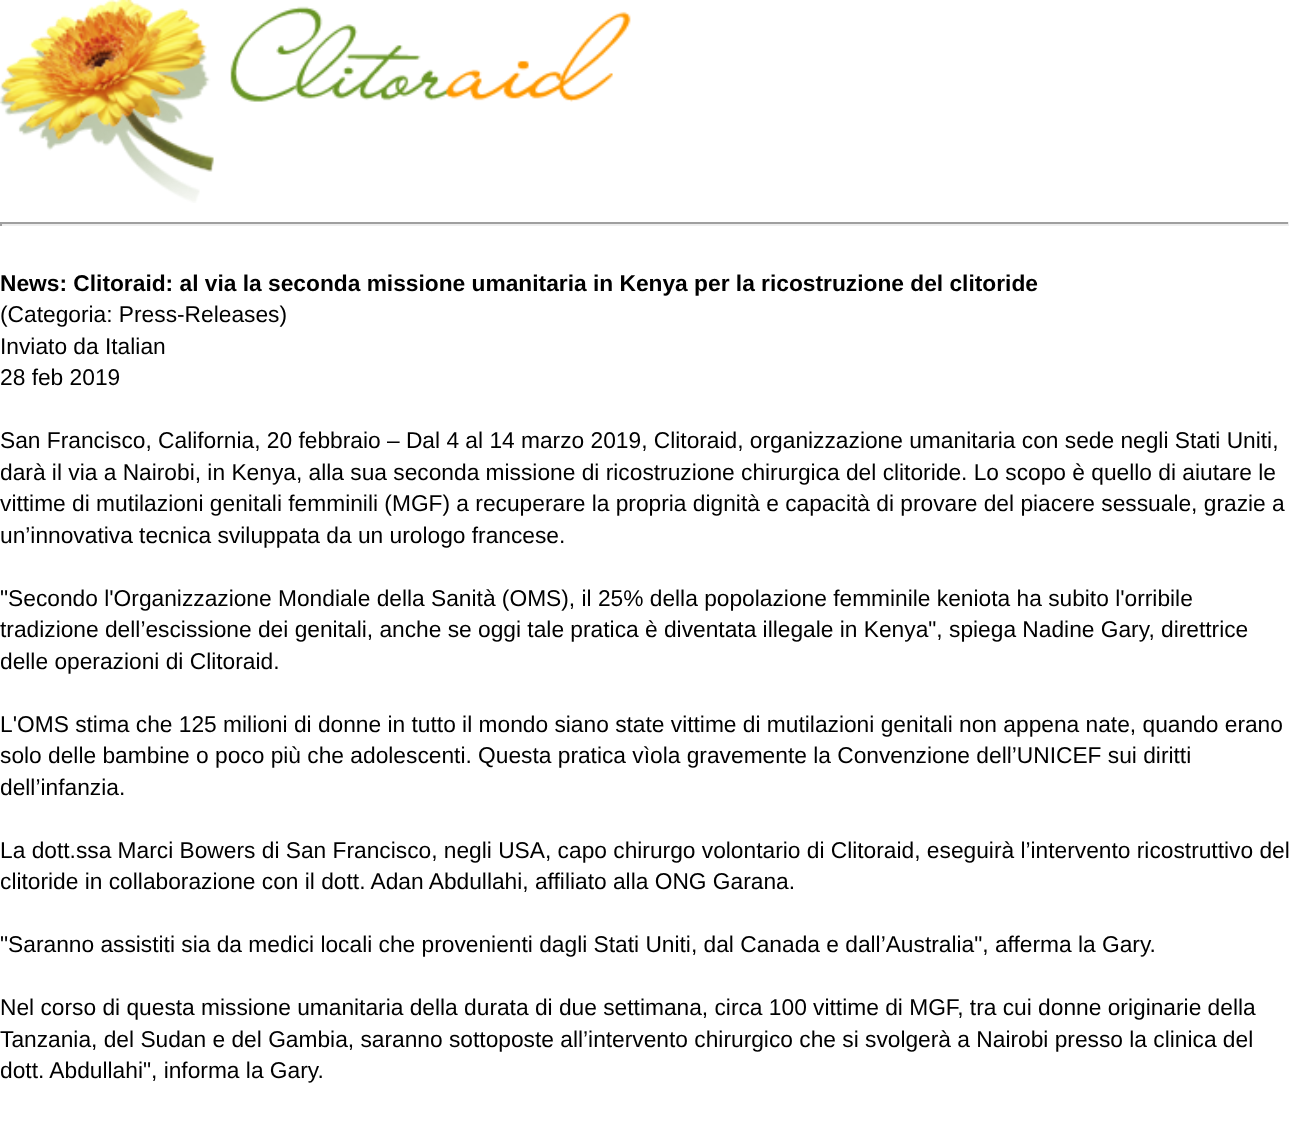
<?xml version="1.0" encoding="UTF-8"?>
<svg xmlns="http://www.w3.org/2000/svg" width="1289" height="1129">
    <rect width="100%" height="100%" fill="#FFFFFF"/>
    <image x="0" y="0" width="631" height="203" href="img_01.png"/>
    <rect x="0" y="222" width="1289" height="2" fill="#9F9F9F"/>
    <rect x="1288" y="222" width="1" height="4" fill="#EEEEEE"/>
    <rect x="0" y="224" width="1289" height="2" fill="#EEEEEE"/>
    <rect x="0" y="222" width="2" height="4" fill="#9F9F9F"/>
    <text x="0" y="291" font-family="Liberation Sans" font-size="22.75" font-weight="700" fill="#000000">News: Clitoraid: al via la seconda missione umanitaria in Kenya per la ricostruzione del clitoride</text>
    <text font-family="Liberation Sans" font-size="22.75" fill="#000000">
        <tspan x="0" y="322">(Categoria: Press-Releases)</tspan>
        <tspan x="0" y="354">Inviato da Italian</tspan>
        <tspan x="0" y="385">28 feb 2019</tspan>
    </text>
    <text font-family="Liberation Sans" font-size="22.75" fill="#000000">
        <tspan x="0" y="448">San Francisco, California, 20 febbraio – Dal 4 al 14 marzo 2019, Clitoraid, organizzazione umanitaria con sede negli Stati Uniti,</tspan>
        <tspan x="0" y="480">darà il via a Nairobi, in Kenya, alla sua seconda missione di ricostruzione chirurgica del clitoride. Lo scopo è quello di aiutare le</tspan>
        <tspan x="0" y="511">vittime di mutilazioni genitali femminili (MGF) a recuperare la propria dignità e capacità di provare del piacere sessuale, grazie a</tspan>
        <tspan x="0" y="543">un’innovativa tecnica sviluppata da un urologo francese.</tspan>
    </text>
    <text font-family="Liberation Sans" font-size="22.75" fill="#000000">
        <tspan x="0" y="606">"Secondo l'Organizzazione Mondiale della Sanità (OMS), il 25% della popolazione femminile keniota ha subito l'orribile</tspan>
        <tspan x="0" y="637">tradizione dell’escissione dei genitali, anche se oggi tale pratica è diventata illegale in Kenya", spiega Nadine Gary, direttrice</tspan>
        <tspan x="0" y="669">delle operazioni di Clitoraid.</tspan>
    </text>
    <text font-family="Liberation Sans" font-size="22.75" fill="#000000">
        <tspan x="0" y="732">L'OMS stima che 125 milioni di donne in tutto il mondo siano state vittime di mutilazioni genitali non appena nate, quando erano</tspan>
        <tspan x="0" y="763">solo delle bambine o poco più che adolescenti. Questa pratica vìola gravemente la Convenzione dell’UNICEF sui diritti</tspan>
        <tspan x="0" y="795">dell’infanzia.</tspan>
    </text>
    <text font-family="Liberation Sans" font-size="22.75" fill="#000000">
        <tspan x="0" y="858">La dott.ssa Marci Bowers di San Francisco, negli USA, capo chirurgo volontario di Clitoraid, eseguirà l’intervento ricostruttivo del</tspan>
        <tspan x="0" y="889">clitoride in collaborazione con il dott. Adan Abdullahi, affiliato alla ONG Garana.</tspan>
    </text>
    <text x="0" y="952" font-family="Liberation Sans" font-size="22.75" fill="#000000">"Saranno assistiti sia da medici locali che provenienti dagli Stati Uniti, dal Canada e dall’Australia", afferma la Gary.</text>
    <text font-family="Liberation Sans" font-size="22.75" fill="#000000">
        <tspan x="0" y="1015">Nel corso di questa missione umanitaria della durata di due settimana, circa 100 vittime di MGF, tra cui donne originarie della</tspan>
        <tspan x="0" y="1047">Tanzania, del Sudan e del Gambia, saranno sottoposte all’intervento chirurgico che si svolgerà a Nairobi presso la clinica del</tspan>
        <tspan x="0" y="1078">dott. Abdullahi", informa la Gary.</tspan>
    </text>
</svg>
